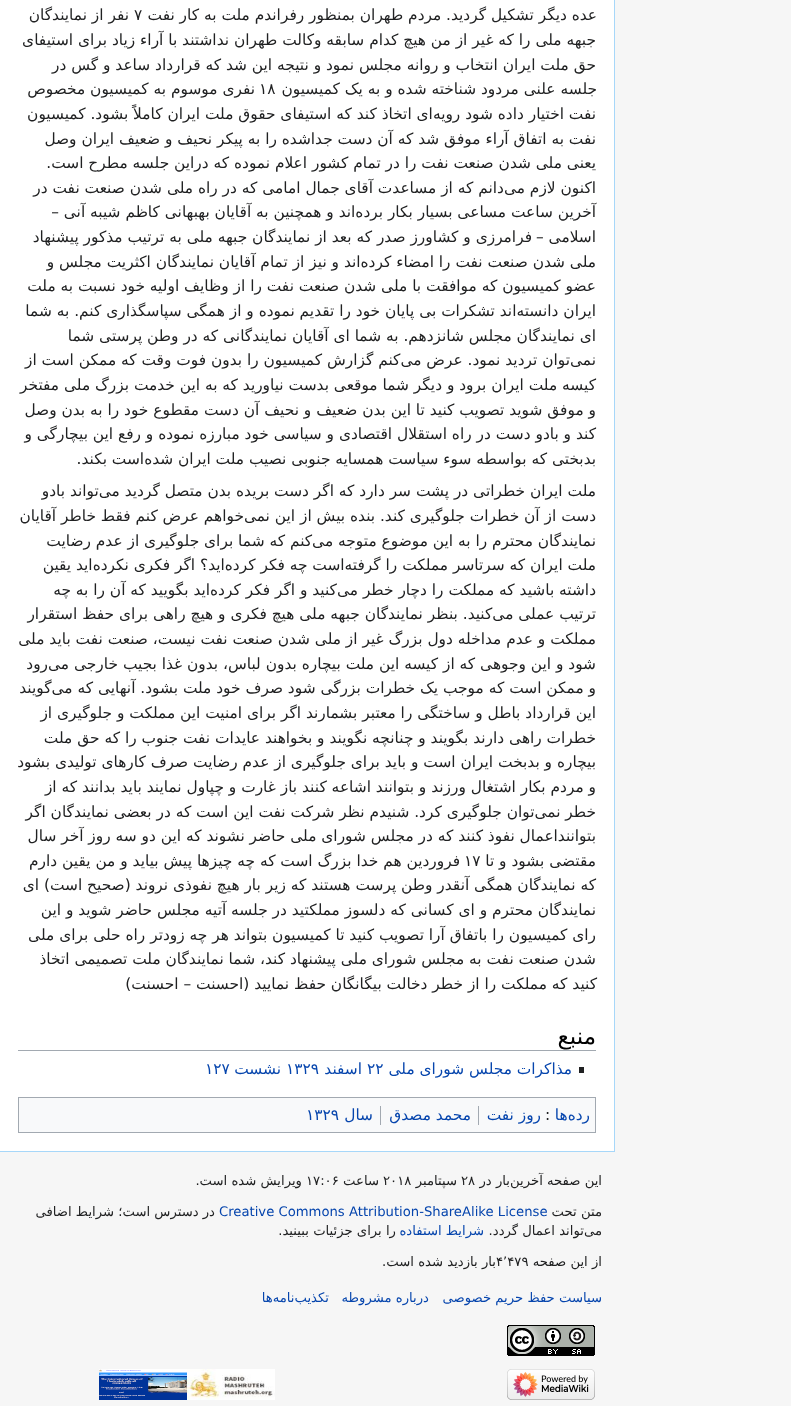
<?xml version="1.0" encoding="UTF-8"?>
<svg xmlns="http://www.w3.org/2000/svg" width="791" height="1406">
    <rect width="100%" height="100%" fill="#F6F6F6"/>
    <rect x="0" y="0" width="614" height="1151" fill="#FFFFFF"/>
    <rect x="614" y="0" width="1" height="1152" fill="#A7D7F9"/>
    <rect x="0" y="1151" width="615" height="1" fill="#A7D7F9"/>
    <text x="597" y="20" font-family="DejaVu Sans" font-size="15.4" direction="rtl" fill="#202122">عده دیگر تشکیل گردید. مردم طهران بمنظور رفراندم ملت به کار نفت</text>
    <text x="134" y="20" font-family="DejaVu Sans" font-size="15.4" fill="#202122">۷</text>
    <text x="129" y="20" font-family="DejaVu Sans" font-size="15.4" direction="rtl" fill="#202122">نفر از نمایندگان</text>
    <text font-family="DejaVu Sans" font-size="15.4" direction="rtl" fill="#202122">
        <tspan x="596" y="45">جبهه ملی را که غیر از من هیچ کدام سابقه وکالت طهران نداشتند با آراء زیاد برای استیفای</tspan>
        <tspan x="596" y="70">حق ملت ایران انتخاب و روانه مجلس نمود و نتیجه این شد که قرارداد ساعد و گس در</tspan>
    </text>
    <text x="597" y="94" font-family="DejaVu Sans" font-size="15.4" direction="rtl" fill="#202122">جلسه علنی مردود شناخته شده و به یک کمیسیون</text>
    <text x="259" y="94" font-family="DejaVu Sans" font-size="15.4" fill="#202122">۱۸</text>
    <text x="255" y="94" font-family="DejaVu Sans" font-size="15.4" direction="rtl" fill="#202122">نفری موسوم به کمیسیون مخصوص</text>
    <text font-family="DejaVu Sans" font-size="15.4" direction="rtl" fill="#202122">
        <tspan x="596" y="119">نفت اختیار داده شود رویه‌ای اتخاذ کند که استیفای حقوق ملت ایران کاملاً بشود. کمیسیون</tspan>
        <tspan x="596" y="144">نفت به اتفاق آراء موفق شد که آن دست جداشده را به پیکر نحیف و ضعیف ایران وصل</tspan>
        <tspan x="596" y="168">یعنی ملی شدن صنعت نفت را در تمام کشور اعلام نموده که دراین جلسه مطرح است.</tspan>
        <tspan x="596" y="193">اکنون لازم می‌دانم که از مساعدت آقای جمال امامی که در راه ملی شدن صنعت نفت در</tspan>
        <tspan x="596" y="217">آخرین ساعت مساعی بسیار بکار برده‌اند و همچنین به آقایان بهبهانی کاظم شیبه آنی –</tspan>
        <tspan x="596" y="242">اسلامی –</tspan>
    </text>
    <text x="532" y="242" font-family="DejaVu Sans" font-size="15.4" direction="rtl" fill="#202122">فرامرزی و کشاورز صدر که بعد از نمایندگان جبهه ملی به ترتیب مذکور پیشنهاد</text>
    <text font-family="DejaVu Sans" font-size="15.4" direction="rtl" fill="#202122">
        <tspan x="596" y="267">ملی شدن صنعت نفت را امضاء کرده‌اند و نیز از تمام آقایان نمایندگان اکثریت مجلس و</tspan>
        <tspan x="596" y="291">عضو کمیسیون که موافقت با ملی شدن صنعت نفت را از وظایف اولیه خود نسبت به ملت</tspan>
        <tspan x="596" y="316">ایران دانسته‌اند تشکرات بی پایان خود را تقدیم نموده و از همگی سپاسگذاری کنم. به شما</tspan>
        <tspan x="596" y="341">ای نمایندگان مجلس شانزدهم. به شما ای آقایان نمایندگانی که در وطن پرستی شما</tspan>
        <tspan x="596" y="365">نمی‌توان تردید نمود. عرض می‌کنم گزارش کمیسیون را بدون فوت وقت که ممکن است از</tspan>
        <tspan x="596" y="390">کیسه ملت ایران برود و دیگر شما موقعی بدست نیاورید که به این خدمت بزرگ ملی مفتخر</tspan>
        <tspan x="596" y="415">و موفق شوید تصویب کنید تا این بدن ضعیف و نحیف آن دست مقطوع خود را به بدن وصل</tspan>
        <tspan x="596" y="439">کند و بادو دست در راه استقلال اقتصادی و سیاسی خود مبارزه نموده و رفع این بیچارگی و</tspan>
        <tspan x="596" y="464">بدبختی که بواسطه سوء سیاست همسایه جنوبی نصیب ملت ایران شده‌است بکند.</tspan>
    </text>
    <text font-family="DejaVu Sans" font-size="15.4" direction="rtl" fill="#202122">
        <tspan x="596" y="496">ملت ایران خطراتی در پشت سر دارد که اگر دست بریده بدن متصل گردید می‌تواند بادو</tspan>
        <tspan x="596" y="521">دست از آن خطرات جلوگیری کند. بنده بیش از این نمی‌خواهم عرض کنم فقط خاطر آقایان</tspan>
        <tspan x="596" y="546">نمایندگان محترم را به این موضوع متوجه می‌کنم که شما برای جلوگیری از عدم رضایت</tspan>
        <tspan x="596" y="570">ملت ایران که سرتاسر مملکت را گرفته‌است چه فکر کرده‌اید؟ اگر فکری نکرده‌اید یقین</tspan>
        <tspan x="596" y="595">داشته باشید که مملکت را دچار خطر می‌کنید و اگر فکر کرده‌اید بگو‌یید که آن را به چه</tspan>
        <tspan x="596" y="619">ترتیب عملی می‌کنید. بنظر نمایندگان جبهه ملی هیچ فکری و هیچ راهی برای حفظ استقرار</tspan>
        <tspan x="596" y="644">مملکت و عدم مداخله دول بزرگ غیر از ملی شدن صنعت نفت نیست، صنعت نفت باید ملی</tspan>
        <tspan x="596" y="669">شود و این وجوهی که از کیسه این ملت بیچاره بدون لباس، بدون غذا بجیب خارجی می‌رود</tspan>
        <tspan x="596" y="693">و ممکن است که موجب یک خطرات بزرگی شود صرف خود ملت بشود. آنهایی که می‌گویند</tspan>
        <tspan x="596" y="718">این قرارداد باطل و ساختگی را معتبر بشمارند اگر برای امنیت این مملکت و جلوگیری از</tspan>
        <tspan x="596" y="743">خطرات راهی دارند بگویند و چنانچه نگویند و بخواهند عایدات نفت جنوب را که حق ملت</tspan>
        <tspan x="596" y="767">بیچاره و بدبخت ایران است و باید برای جلوگیری از عدم رضایت صرف کارهای تولیدی بشود</tspan>
        <tspan x="596" y="792">و مردم بکار اشتغال ورزند و بتوانند اشاعه کنند باز غارت و چپاول نمایند باید بدانند که از</tspan>
        <tspan x="596" y="817">خطر نمی‌توان جلوگیری کرد. شنیدم نظر شرکت نفت این است که در بعضی نمایندگان اگر</tspan>
        <tspan x="596" y="841">بتواننداعمال نفوذ کنند که در مجلس شورای ملی حاضر نشوند که این دو سه روز آخر سال</tspan>
        <tspan x="596" y="866">مقتضی بشود و تا</tspan>
    </text>
    <text x="464" y="866" font-family="DejaVu Sans" font-size="15.4" fill="#202122">۱۷</text>
    <text x="460" y="866" font-family="DejaVu Sans" font-size="15.4" direction="rtl" fill="#202122">فروردین هم خدا بزرگ است که چه چیزها پیش بیاید و من یقین دارم</text>
    <text font-family="DejaVu Sans" font-size="15.4" direction="rtl" fill="#202122">
        <tspan x="596" y="890">که نمایندگان همگی آنقدر وطن پرست هستند که زیر بار هیچ نفوذی نروند (صحیح است) ای</tspan>
        <tspan x="596" y="915">نمایندگان محترم و ای کسانی که دلسوز مملکتید در جلسه آتیه مجلس حاضر شوید و این</tspan>
        <tspan x="596" y="940">رای کمیسیون را باتفاق آرا تصویب کنید تا کمیسیون بتواند هر چه زودتر راه حلی برای ملی</tspan>
        <tspan x="596" y="964">شدن صنعت نفت به مجلس شورای ملی پیشنهاد کند، شما نمایندگان ملت تصمیمی اتخاذ</tspan>
    </text>
    <text x="597" y="989" font-family="DejaVu Sans" font-size="15.4" direction="rtl" fill="#202122">کنید که مملکت را از خطر دخالت بیگانگان حفظ نما‌یید (احسنت – احسنت)</text>
    <rect x="18" y="1050" width="578" height="1" fill="#A2A9B1"/>
    <text x="596" y="1044" font-family="DejaVu Sans" font-size="23" direction="rtl" fill="#000000">منبع</text>
    <rect x="579" y="1067" width="5" height="6" fill="#202122"/>
    <text x="572" y="1074" font-family="DejaVu Sans" font-size="15.4" direction="rtl" fill="#0645AD">مذاکرات مجلس شورای ملی</text>
    <text x="367" y="1074" font-family="DejaVu Sans" font-size="15.4" fill="#0645AD">۲۲</text>
    <text x="362" y="1074" font-family="DejaVu Sans" font-size="15.4" direction="rtl" fill="#0645AD">اسفند</text>
    <text x="286" y="1074" font-family="DejaVu Sans" font-size="15.4" fill="#0645AD">۱۳۲۹</text>
    <text x="281" y="1074" font-family="DejaVu Sans" font-size="15.4" direction="rtl" fill="#0645AD">نشست</text>
    <text x="205" y="1074" font-family="DejaVu Sans" font-size="15.4" fill="#0645AD">۱۲۷</text>
    <rect x="18.5" y="1097.5" width="577" height="35" fill="#F8F9FA" stroke="#A2A9B1"/>
    <text x="590" y="1120" font-family="DejaVu Sans" font-size="15.4" direction="rtl" fill="#0645AD">رده‌ها</text>
    <text x="545" y="1120" font-family="DejaVu Sans" font-size="15.4" fill="#202122">:</text>
    <text x="541" y="1120" font-family="DejaVu Sans" font-size="15.4" direction="rtl" fill="#0645AD">روز نفت</text>
    <rect x="478" y="1106" width="1" height="19" fill="#A2A9B1"/>
    <text x="471" y="1120" font-family="DejaVu Sans" font-size="15.4" direction="rtl" fill="#0645AD">محمد مصدق</text>
    <rect x="380" y="1106" width="1" height="19" fill="#A2A9B1"/>
    <text x="373" y="1120" font-family="DejaVu Sans" font-size="15.4" direction="rtl" fill="#0645AD">سال</text>
    <text x="306" y="1120" font-family="DejaVu Sans" font-size="15.4" fill="#0645AD">۱۳۲۹</text>
    <text x="602" y="1185" font-family="DejaVu Sans" font-size="13.2" direction="rtl" fill="#202122">این صفحه آخرین‌بار در </text>
    <text x="461" y="1185" font-family="DejaVu Sans" font-size="13.2" fill="#202122">۲۸</text>
    <text x="457" y="1185" font-family="DejaVu Sans" font-size="13.2" direction="rtl" fill="#202122">سپتامبر</text>
    <text x="383" y="1185" font-family="DejaVu Sans" font-size="13.2" fill="#202122">۲۰۱۸</text>
    <text x="379" y="1185" font-family="DejaVu Sans" font-size="13.2" direction="rtl" fill="#202122">ساعت </text>
    <text x="306" y="1185" font-family="DejaVu Sans" font-size="13.2" fill="#202122">۱۷:۰۶</text>
    <text x="302" y="1185" font-family="DejaVu Sans" font-size="13.2" direction="rtl" fill="#202122">ویرایش شده است.</text>
    <text x="602" y="1216" font-family="DejaVu Sans" font-size="13.2" direction="rtl" fill="#202122">متن تحت</text>
    <text x="219" y="1216" font-family="DejaVu Sans" font-size="13.2" fill="#0645AD">Creative Commons Attribution-ShareAlike License</text>
    <text x="215" y="1216" font-family="DejaVu Sans" font-size="13.2" direction="rtl" fill="#202122">در دسترس است؛ شرایط اضافی</text>
    <text x="602" y="1235" font-family="DejaVu Sans" font-size="13.2" direction="rtl" fill="#202122">می‌تواند اعمال گردد.</text>
    <text x="484" y="1235" font-family="DejaVu Sans" font-size="13.2" direction="rtl" fill="#0645AD">شرایط استفاده</text>
    <text x="396" y="1235" font-family="DejaVu Sans" font-size="13.2" direction="rtl" fill="#202122">را برای جزئیات ببینید.</text>
    <text x="602" y="1266" font-family="DejaVu Sans" font-size="13.2" direction="rtl" fill="#202122">از این صفحه</text>
    <text x="496" y="1266" font-family="DejaVu Sans" font-size="13.2" fill="#202122">۴٬۴۷۹</text>
    <text x="496" y="1266" font-family="DejaVu Sans" font-size="13.2" direction="rtl" fill="#202122">بار بازدید شده است.</text>
    <text x="602" y="1302" font-family="DejaVu Sans" font-size="13.2" direction="rtl" fill="#0645AD">سیاست حفظ حریم خصوصی</text>
    <text x="429" y="1302" font-family="DejaVu Sans" font-size="13.2" direction="rtl" fill="#0645AD">درباره مشروطه</text>
    <text x="329" y="1302" font-family="DejaVu Sans" font-size="13.2" direction="rtl" fill="#0645AD">تکذیب‌نامه‌ها</text>
    <image x="507" y="1325" width="88" height="31" href="img_01.png"/>
    <image x="507" y="1369" width="88" height="31" href="img_02.png"/>
    <image x="187" y="1369" width="88" height="31" href="img_03.png"/>
    <image x="99" y="1369" width="88" height="31" href="img_04.png"/>
</svg>
